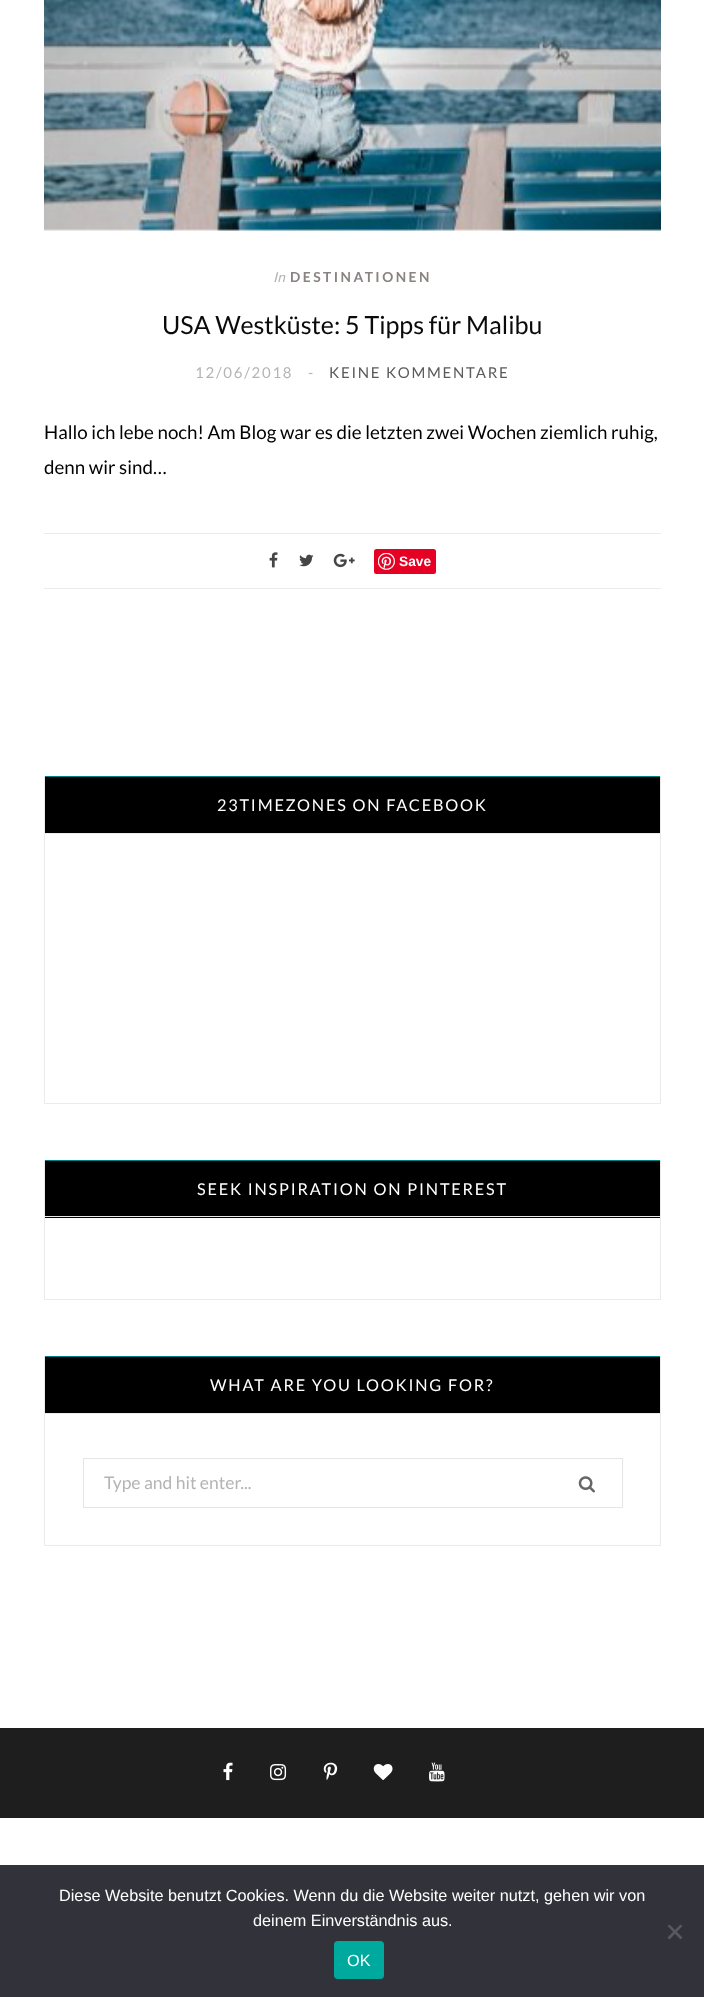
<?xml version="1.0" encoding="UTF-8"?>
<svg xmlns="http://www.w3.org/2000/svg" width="704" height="1997">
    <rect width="100%" height="100%" fill="#FFFFFF"/>
    <image x="44" y="0" width="617" height="231" href="img_01.png"/>
    <text x="273" y="282" font-family="Lato" font-size="13.75" font-style="italic" fill="#B4B4B4">In</text>
    <text x="290" y="282" font-family="Lato" font-size="13.75" font-weight="700" letter-spacing="2.5" fill="#898382">DESTINATIONEN</text>
    <text x="162" y="334" font-family="Lato" font-size="25" fill="#0A0A0A">USA Westküste: 5 Tipps für Malibu</text>
    <text x="195" y="378" font-family="Lato" font-size="15" letter-spacing="1.75" fill="#B4B4B4">12/06/2018</text>
    <text x="308" y="378" font-family="Lato" font-size="15" letter-spacing="1.75" fill="#B4B4B4">-</text>
    <text x="329" y="378" font-family="Lato" font-size="15" letter-spacing="1.75" fill="#5B5B5B">KEINE KOMMENTARE</text>
    <text font-family="Lato" font-size="18.75" fill="#000000">
        <tspan x="44" y="439">Hallo ich lebe noch! Am Blog war es die letzten zwei Wochen ziemlich ruhig,</tspan>
        <tspan x="44" y="474">denn wir sind…</tspan>
    </text>
    <rect x="44" y="533" width="617" height="1" fill="#EBEBEB"/>
    <rect x="44" y="588" width="617" height="1" fill="#EBEBEB"/>
    <image x="269" y="552" width="9" height="16" href="img_02.png"/>
    <image x="299" y="554" width="15" height="13" href="img_03.png"/>
    <image x="333" y="553" width="22" height="15" href="img_04.png"/>
    <rect x="374" y="549" width="62" height="25" rx="2.5" fill="#E60023"/>
    <image x="378" y="553" width="17" height="17" href="img_05.png"/>
    <text x="399" y="566" font-family="Liberation Sans" font-size="13.75" font-weight="700" fill="#FFFFFF">Save</text>
    <rect x="44.5" y="776.5" width="616" height="327" fill="none" stroke="#EBEBEB"/>
    <rect x="45" y="777" width="615" height="56" fill="#000000"/>
    <rect x="44" y="776" width="617" height="1" fill="#008089"/>
    <rect x="660" y="776" width="1" height="1" fill="#EBEBEB"/>
    <rect x="44" y="833" width="617" height="1" fill="#EBEBEB"/>
    <rect x="44" y="776" width="1" height="1" fill="#EBEBEB"/>
    <text x="217" y="811" font-family="Lato" font-size="16.25" letter-spacing="1.8" fill="#FFFFFF">23TIMEZONES ON FACEBOOK</text>
    <rect x="44.5" y="1160.5" width="616" height="139" fill="none" stroke="#EBEBEB"/>
    <rect x="45" y="1161" width="615" height="57" fill="#000000"/>
    <rect x="44" y="1160" width="617" height="1" fill="#008089"/>
    <rect x="660" y="1160" width="1" height="1" fill="#EBEBEB"/>
    <rect x="44" y="1216" width="617" height="1" fill="#EBEBEB"/>
    <rect x="44" y="1160" width="1" height="1" fill="#EBEBEB"/>
    <text x="197" y="1195" font-family="Lato" font-size="16.25" letter-spacing="1.8" fill="#FFFFFF">SEEK INSPIRATION ON PINTEREST</text>
    <rect x="44.5" y="1356.5" width="616" height="189" fill="none" stroke="#EBEBEB"/>
    <rect x="45" y="1357" width="615" height="56" fill="#000000"/>
    <rect x="44" y="1356" width="617" height="1" fill="#008089"/>
    <rect x="660" y="1356" width="1" height="1" fill="#EBEBEB"/>
    <rect x="44" y="1413" width="617" height="1" fill="#EBEBEB"/>
    <rect x="44" y="1356" width="1" height="1" fill="#EBEBEB"/>
    <text x="210" y="1391" font-family="Lato" font-size="16.25" letter-spacing="1.8" fill="#FFFFFF">WHAT ARE YOU LOOKING FOR?</text>
    <rect x="83.5" y="1458.5" width="539" height="49" fill="none" stroke="#E5E5E5"/>
    <text x="104" y="1489" font-family="Lato" font-size="17.5" fill="#B4B4B4">Type and hit enter...</text>
    <image x="578" y="1476" width="17" height="17" href="img_06.png"/>
    <rect x="0" y="1728" width="704" height="90" fill="#1E1E1E"/>
    <image x="223" y="1762" width="10" height="19" href="img_07.png"/>
    <image x="270" y="1764" width="17" height="17" href="img_08.png"/>
    <image x="323" y="1762" width="15" height="18" href="img_09.png"/>
    <image x="373" y="1764" width="20" height="16" href="img_10.png"/>
    <image x="429" y="1762" width="16" height="20" href="img_11.png"/>
    <rect x="0" y="1865" width="704" height="132" fill="#32323A"/>
    <text x="59" y="1901" font-family="Liberation Sans" font-size="16.25" fill="#FFFFFF">Diese Website benutzt Cookies. Wenn du die Website weiter nutzt, gehen wir von</text>
    <text x="253" y="1926" font-family="Liberation Sans" font-size="16.25" fill="#FFFFFF">deinem Einverständnis aus.</text>
    <path d="M 680.5 1924.5 L 682.5 1926 L 669.5 1939.5 L 667.5 1937.5 Z" fill="#59595D"/>
    <path d="M 667.5 1926 L 669.5 1924.5 L 682.5 1937.5 L 680.5 1939.5 Z" fill="#59595D"/>
    <rect x="334" y="1941" width="50" height="38" rx="4" fill="#00A99D"/>
    <text x="347" y="1966" font-family="Liberation Sans" font-size="16.25" fill="#FFFFFF">OK</text>
</svg>
